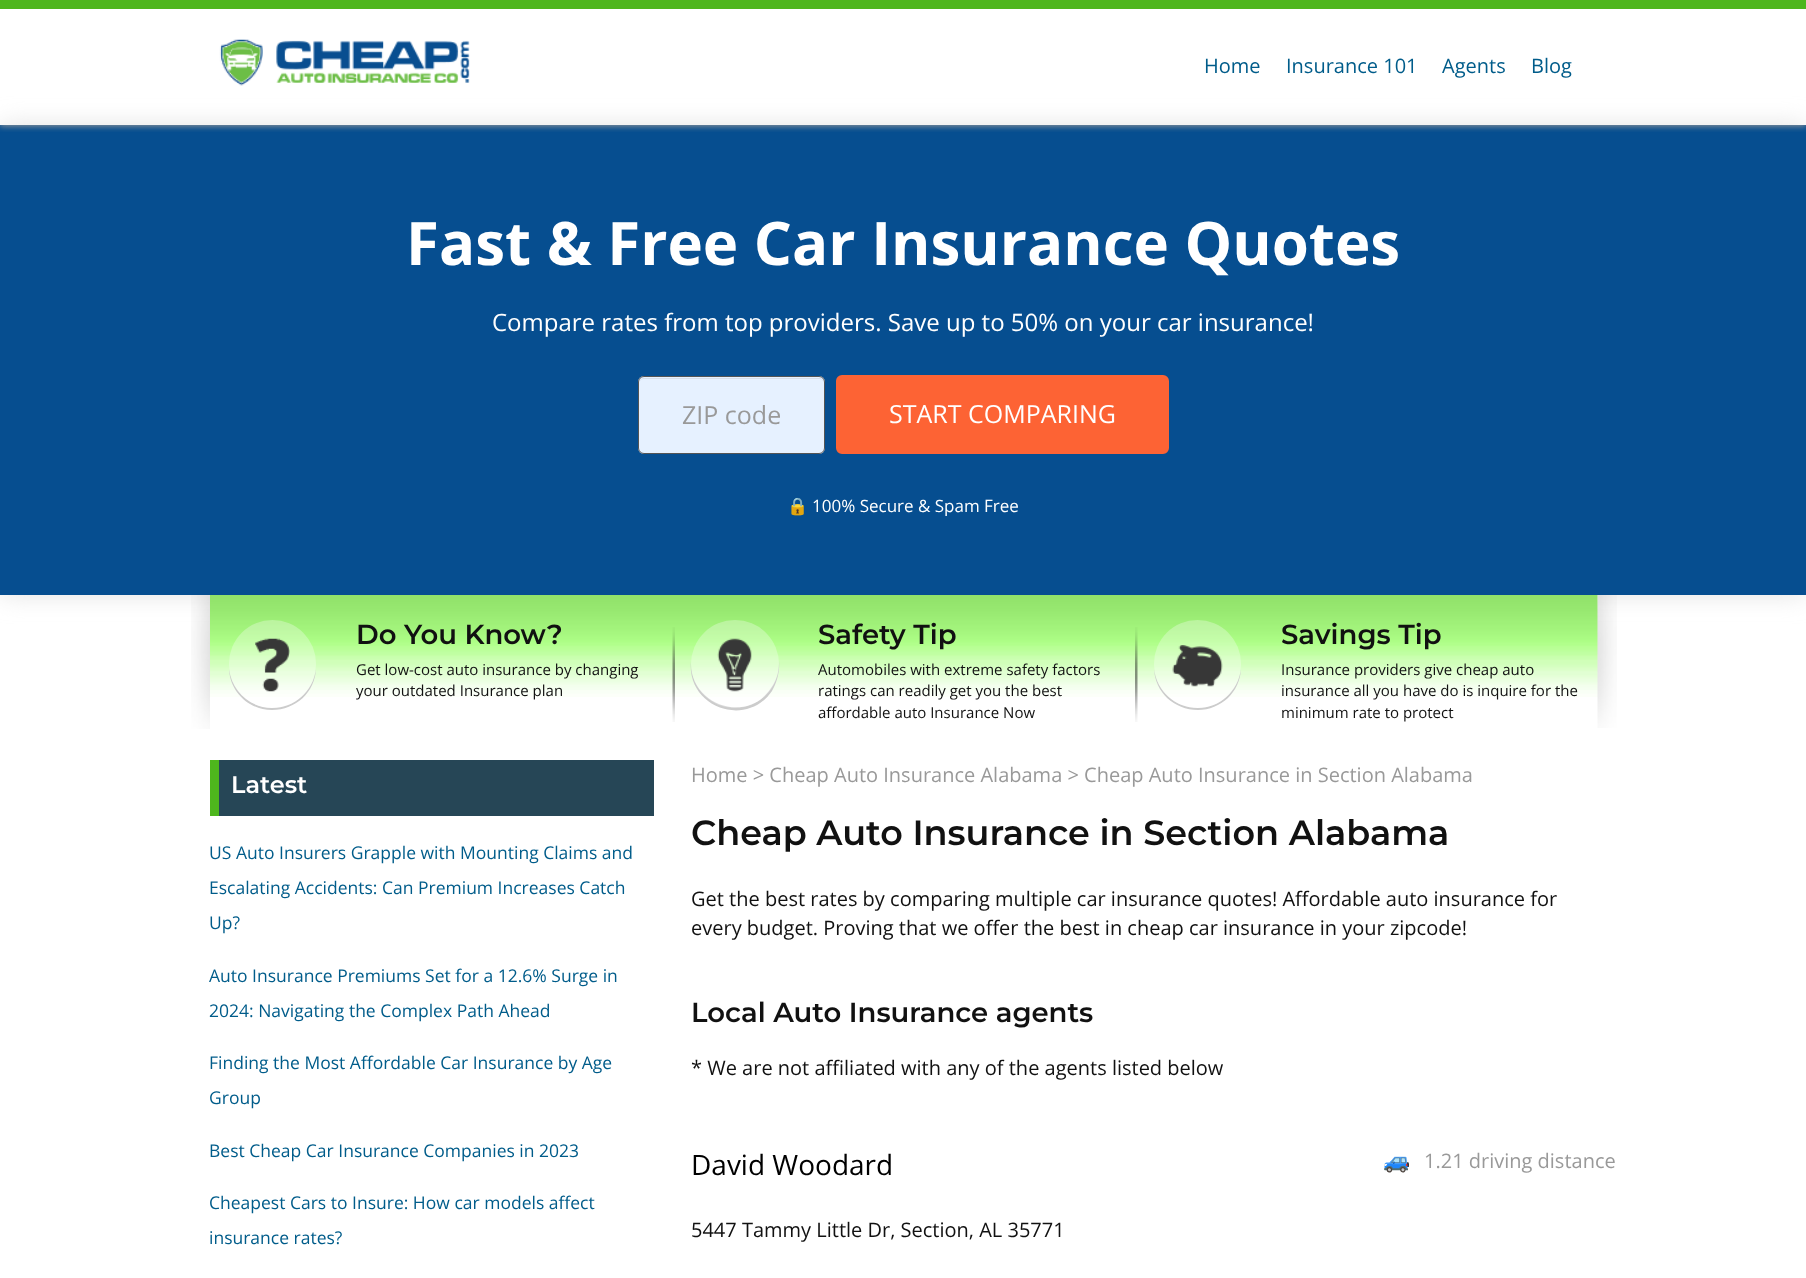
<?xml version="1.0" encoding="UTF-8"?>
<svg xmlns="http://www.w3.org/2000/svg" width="1806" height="1278">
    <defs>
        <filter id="blur1" x="-50%" y="-200%" width="200%" height="500%"><feGaussianBlur stdDeviation="12.5"/></filter>
        <clipPath id="clip1"><rect x="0" y="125" width="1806" height="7"/></clipPath>
        <filter id="blur2" x="-50%" y="-200%" width="200%" height="500%"><feGaussianBlur stdDeviation="3"/></filter>
    </defs>
    <rect width="100%" height="100%" fill="#FFFFFF"/>
    <rect x="0" y="125" width="1806" height="470" fill="#E3E3E3" filter="url(#blur1)"/>
    <rect x="0" y="125" width="1806" height="470" fill="#064E90"/>
    <g clip-path="url(#clip1)">
        <rect x="0" y="1" width="1806" height="125" fill="#999999" filter="url(#blur2)"/>
    </g>
    <rect x="0" y="0" width="1806" height="9" fill="#4EB61D"/>
    <image x="219" y="39" width="251" height="47" href="img_01.png"/>
    <text x="1204" y="73" font-family="Open Sans" font-size="20" fill="#005C8A">Home</text>
    <text x="1286" y="73" font-family="Open Sans" font-size="20" fill="#005C8A">Insurance 101</text>
    <text x="1442" y="73" font-family="Open Sans" font-size="20" fill="#005C8A">Agents</text>
    <text x="1531" y="73" font-family="Open Sans" font-size="20" fill="#005C8A">Blog</text>
    <text x="406" y="265" font-family="Open Sans" font-size="60" font-weight="700" fill="#FFFFFF">Fast &amp; Free Car Insurance Quotes</text>
    <text x="492" y="331" font-family="Open Sans" font-size="24" fill="#FFFFFF">Compare rates from top providers. Save up to 50% on your car insurance!</text>
    <rect x="638" y="376" width="187" height="78" rx="6" fill="#E6F1FF"/>
    <path d="M 644 379 H 819 C 822 379 824 381 824 384 C 824 381 823 379 820 378 H 643 C 640 379 639 381 639 384 C 639 381 641 379 644 379 Z" fill="#D5DFEC"/>
    <rect x="638.5" y="376.5" width="186" height="77" rx="5.5" fill="none" stroke="#555555"/>
    <text x="682" y="424" font-family="Open Sans" font-size="25" fill="#999999">ZIP code</text>
    <rect x="837.5" y="376.5" width="330" height="76" rx="4.5" fill="#FD6334" stroke="#FD6334" stroke-width="3"/>
    <text x="889" y="423" font-family="Open Sans" font-size="25" fill="#FFFFFF">START COMPARING</text>
    <text x="787" y="512" font-family="Noto Color Emoji" font-size="17" fill="#FFFFFF">🔒</text>
    <text x="812" y="512" font-family="Open Sans" font-size="17" fill="#FFFFFF">100% Secure &amp; Spam Free</text>
    <rect x="210" y="595" width="1388" height="16" fill="#FFFFFF"/>
    <image x="210" y="595" width="1388" height="102" href="img_02.png"/>
    <image x="191" y="595" width="19" height="134" href="img_03.png"/>
    <path d="M 229 669 C 230 692 249 710 272 710 C 296 710 315 692 316 669 C 313 691 295 708 272 708 C 250 708 232 691 229 669 Z" fill="#CCCCCC"/>
    <rect x="229" y="620" width="87" height="88" rx="43.5" fill="#FFFFFF" fill-opacity="0.3"/>
    <image x="255" y="638" width="35" height="54" href="img_04.png"/>
    <text x="356" y="644" font-family="Montserrat" font-size="27.5" font-weight="100" fill="#111111">Do You Know?</text>
    <text font-family="Open Sans" font-size="15" fill="#111111">
        <tspan x="356" y="675">Get low-cost auto insurance by changing</tspan>
        <tspan x="356" y="696">your outdated Insurance plan</tspan>
    </text>
    <image x="672" y="627" width="3" height="95" href="img_05.png"/>
    <path d="M 691 661 C 686 707 746 729 772 691 C 777 682 780 671 779 661 C 779 671 777 680 771 688 C 747 725 689 705 691 661 Z" fill="#CCCCCC"/>
    <circle cx="735" cy="664" r="44" fill="#FFFFFF" fill-opacity="0.3"/>
    <image x="717" y="638" width="35" height="54" href="img_06.png"/>
    <text x="818" y="644" font-family="Montserrat" font-size="27.5" font-weight="100" fill="#111111">Safety Tip</text>
    <text font-family="Open Sans" font-size="15" fill="#111111">
        <tspan x="818" y="675">Automobiles with extreme safety factors</tspan>
        <tspan x="818" y="696">ratings can readily get you the best</tspan>
        <tspan x="818" y="718">affordable auto Insurance Now</tspan>
    </text>
    <image x="1135" y="627" width="3" height="95" href="img_07.png"/>
    <path d="M 1154 669 C 1155 692 1174 710 1198 710 C 1221 710 1240 692 1241 669 C 1238 691 1220 708 1198 708 C 1175 708 1157 691 1154 669 Z" fill="#CCCCCC"/>
    <rect x="1154" y="620" width="87" height="88" rx="43.5" fill="#FFFFFF" fill-opacity="0.3"/>
    <image x="1172" y="645" width="51" height="42" href="img_08.png"/>
    <text x="1281" y="644" font-family="Montserrat" font-size="27.5" font-weight="100" fill="#111111">Savings Tip</text>
    <text font-family="Open Sans" font-size="15" fill="#111111">
        <tspan x="1281" y="675">Insurance providers give cheap auto</tspan>
        <tspan x="1281" y="696">insurance all you have do is inquire for the</tspan>
        <tspan x="1281" y="718">minimum rate to protect</tspan>
    </text>
    <image x="1597" y="595" width="20" height="133" href="img_09.png"/>
    <rect x="219" y="760" width="435" height="56" fill="#264656"/>
    <rect x="210" y="760" width="9" height="56" fill="#4EB61D"/>
    <text x="231" y="793" font-family="Montserrat" font-size="24" font-weight="100" fill="#FFFFFF">Latest</text>
    <text x="209" y="859" font-family="Open Sans" font-size="17.5" fill="#005C8A">US Auto Insurers Grapple with Mounting Claims and</text>
    <text x="209" y="894" font-family="Open Sans" font-size="17.5" fill="#005C8A">Escalating Accidents: Can Premium Increases Catch</text>
    <text x="209" y="929" font-family="Open Sans" font-size="17.5" fill="#005C8A">Up?</text>
    <text x="209" y="982" font-family="Open Sans" font-size="17.5" fill="#005C8A">Auto Insurance Premiums Set for a 12.6% Surge in</text>
    <text x="209" y="1017" font-family="Open Sans" font-size="17.5" fill="#005C8A">2024: Navigating the Complex Path Ahead</text>
    <text x="209" y="1069" font-family="Open Sans" font-size="17.5" fill="#005C8A">Finding the Most Affordable Car Insurance by Age</text>
    <text x="209" y="1104" font-family="Open Sans" font-size="17.5" fill="#005C8A">Group</text>
    <text x="209" y="1157" font-family="Open Sans" font-size="17.5" fill="#005C8A">Best Cheap Car Insurance Companies in 2023</text>
    <text x="209" y="1209" font-family="Open Sans" font-size="17.5" fill="#005C8A">Cheapest Cars to Insure: How car models affect</text>
    <text x="209" y="1244" font-family="Open Sans" font-size="17.5" fill="#005C8A">insurance rates?</text>
    <text x="691" y="782" font-family="Open Sans" font-size="20" fill="#999999">Home &gt; Cheap Auto Insurance Alabama &gt; Cheap Auto Insurance in Section Alabama</text>
    <text x="691" y="845" font-family="Montserrat" font-size="35" font-weight="100" fill="#111111">Cheap Auto Insurance in Section Alabama</text>
    <text font-family="Open Sans" font-size="20" fill="#111111">
        <tspan x="691" y="906">Get the best rates by comparing multiple car insurance quotes! Affordable auto insurance for</tspan>
        <tspan x="691" y="935">every budget. Proving that we offer the best in cheap car insurance in your zipcode!</tspan>
    </text>
    <text x="691" y="1022" font-family="Montserrat" font-size="27.5" font-weight="100" fill="#111111">Local Auto Insurance agents</text>
    <text x="691" y="1075" font-family="Open Sans" font-size="20" fill="#111111">* We are not affiliated with any of the agents listed below</text>
    <text x="691" y="1175" font-family="Open Sans" font-size="28" fill="#000000">David Woodard</text>
    <text x="1383" y="1168" font-family="Noto Color Emoji" font-size="22" fill="#999999">🚙</text>
    <text x="1424" y="1168" font-family="Open Sans" font-size="20" fill="#999999">1.21 driving distance</text>
    <text x="691" y="1237" font-family="Open Sans" font-size="20" fill="#111111">5447 Tammy Little Dr, Section, AL 35771</text>
</svg>
